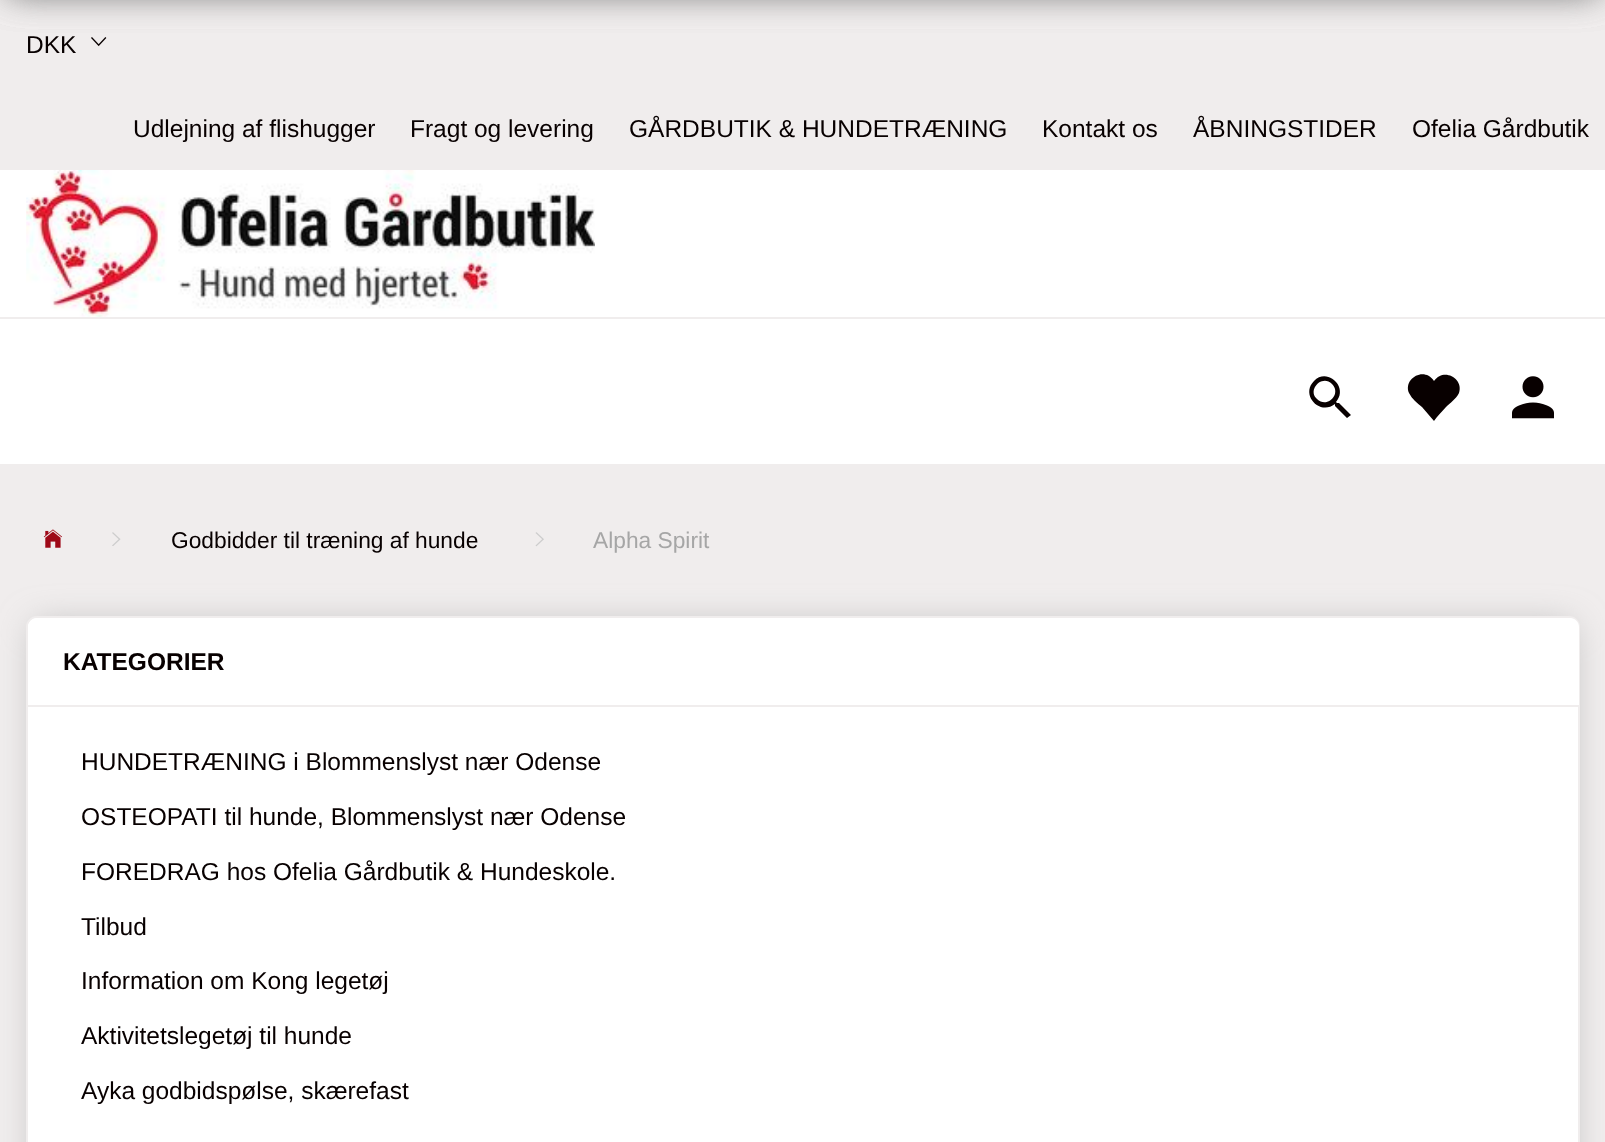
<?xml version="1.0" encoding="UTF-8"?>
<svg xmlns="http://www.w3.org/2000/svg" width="1605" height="1142">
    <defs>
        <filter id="blur1" x="-50%" y="-200%" width="200%" height="500%"><feGaussianBlur stdDeviation="17.5"/></filter>
    </defs>
    <rect width="100%" height="100%" fill="#F0EDED"/>
    <image x="91" y="37" width="16" height="10" href="img_01.png"/>
    <rect x="9" y="-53" width="1589" height="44" fill="#949494" filter="url(#blur1)"/>
    <rect x="9" y="-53" width="1589" height="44" fill="#949494" filter="url(#blur1)"/>
    <rect x="0" y="170" width="1605" height="294" fill="#FFFFFF"/>
    <text x="26" y="53" font-family="Liberation Sans" font-size="24.5" fill="#080000">DKK</text>
    <text x="133" y="137" font-family="Liberation Sans" font-size="24.5" fill="#080000">Udlejning af flishugger</text>
    <text x="410" y="137" font-family="Liberation Sans" font-size="24.5" fill="#080000">Fragt og levering</text>
    <text x="629" y="137" font-family="Liberation Sans" font-size="24.5" fill="#080000">GÅRDBUTIK &amp; HUNDETRÆNING</text>
    <text x="1042" y="137" font-family="Liberation Sans" font-size="24.5" fill="#080000">Kontakt os</text>
    <text x="1193" y="137" font-family="Liberation Sans" font-size="24.5" fill="#080000">ÅBNINGSTIDER</text>
    <text x="1412" y="137" font-family="Liberation Sans" font-size="24.5" fill="#080000">Ofelia Gårdbutik</text>
    <rect x="0" y="317" width="1605" height="2" fill="#F0EDED"/>
    <image x="26" y="170" width="569" height="147" href="img_02.png"/>
    <path d="M 1339 403 L 1351 415 L 1347 418 L 1335 406 V 404 C 1320 416 1300 395 1314 381 C 1327 367 1349 387 1336 402 L 1337 403 Z M 1317 399 C 1327 409 1342 394 1332 384 C 1322 374 1307 390 1317 399 Z" fill="#080000"/>
    <path d="M 1434 381 C 1444 367 1464 379 1459 393 C 1456 399 1450 403 1446 407 C 1442 412 1437 416 1434 421 C 1430 416 1426 412 1422 407 C 1417 403 1412 399 1409 393 C 1403 379 1424 366 1434 381 Z" fill="#080000"/>
    <image x="1512" y="376" width="42" height="43" href="img_03.png"/>
    <image x="43" y="529" width="19" height="19" href="img_04.png"/>
    <image x="112" y="532" width="9" height="14" href="img_05.png"/>
    <text x="171" y="548" font-family="Liberation Sans" font-size="22.75" fill="#080000">Godbidder til træning af hunde</text>
    <image x="535" y="532" width="9" height="15" href="img_06.png"/>
    <text x="593" y="548" font-family="Liberation Sans" font-size="22.75" fill="#A6A6A6">Alpha Spirit</text>
    <rect x="35" y="625" width="1537" height="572" rx="2" fill="#B8B8B8" filter="url(#blur1)"/>
    <rect x="27" y="617" width="1552" height="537" rx="10" fill="#FFFFFF" stroke="#F0EDED" stroke-width="2"/>
    <path d="M 37 618 H 1570 C 1575 618 1579 622 1579 627 V 707 H 28 V 627 C 28 622 32 618 37 618 Z" fill="#FFFFFF"/>
    <rect x="28" y="705" width="1551" height="2" fill="#F0EDED"/>
    <text x="63" y="670" font-family="Liberation Sans" font-size="24.5" font-weight="700" fill="#080000">KATEGORIER</text>
    <text x="81" y="770" font-family="Liberation Sans" font-size="24.5" fill="#080000">HUNDETRÆNING i Blommenslyst nær Odense</text>
    <text x="81" y="825" font-family="Liberation Sans" font-size="24.5" fill="#080000">OSTEOPATI til hunde, Blommenslyst nær Odense</text>
    <text x="81" y="880" font-family="Liberation Sans" font-size="24.5" fill="#080000">FOREDRAG hos Ofelia Gårdbutik &amp; Hundeskole.</text>
    <text x="81" y="935" font-family="Liberation Sans" font-size="24.5" fill="#080000">Tilbud</text>
    <text x="81" y="989" font-family="Liberation Sans" font-size="24.5" fill="#080000">Information om Kong legetøj</text>
    <text x="81" y="1044" font-family="Liberation Sans" font-size="24.5" fill="#080000">Aktivitetslegetøj til hunde</text>
    <text x="81" y="1099" font-family="Liberation Sans" font-size="24.5" fill="#080000">Ayka godbidspølse, skærefast</text>
</svg>
